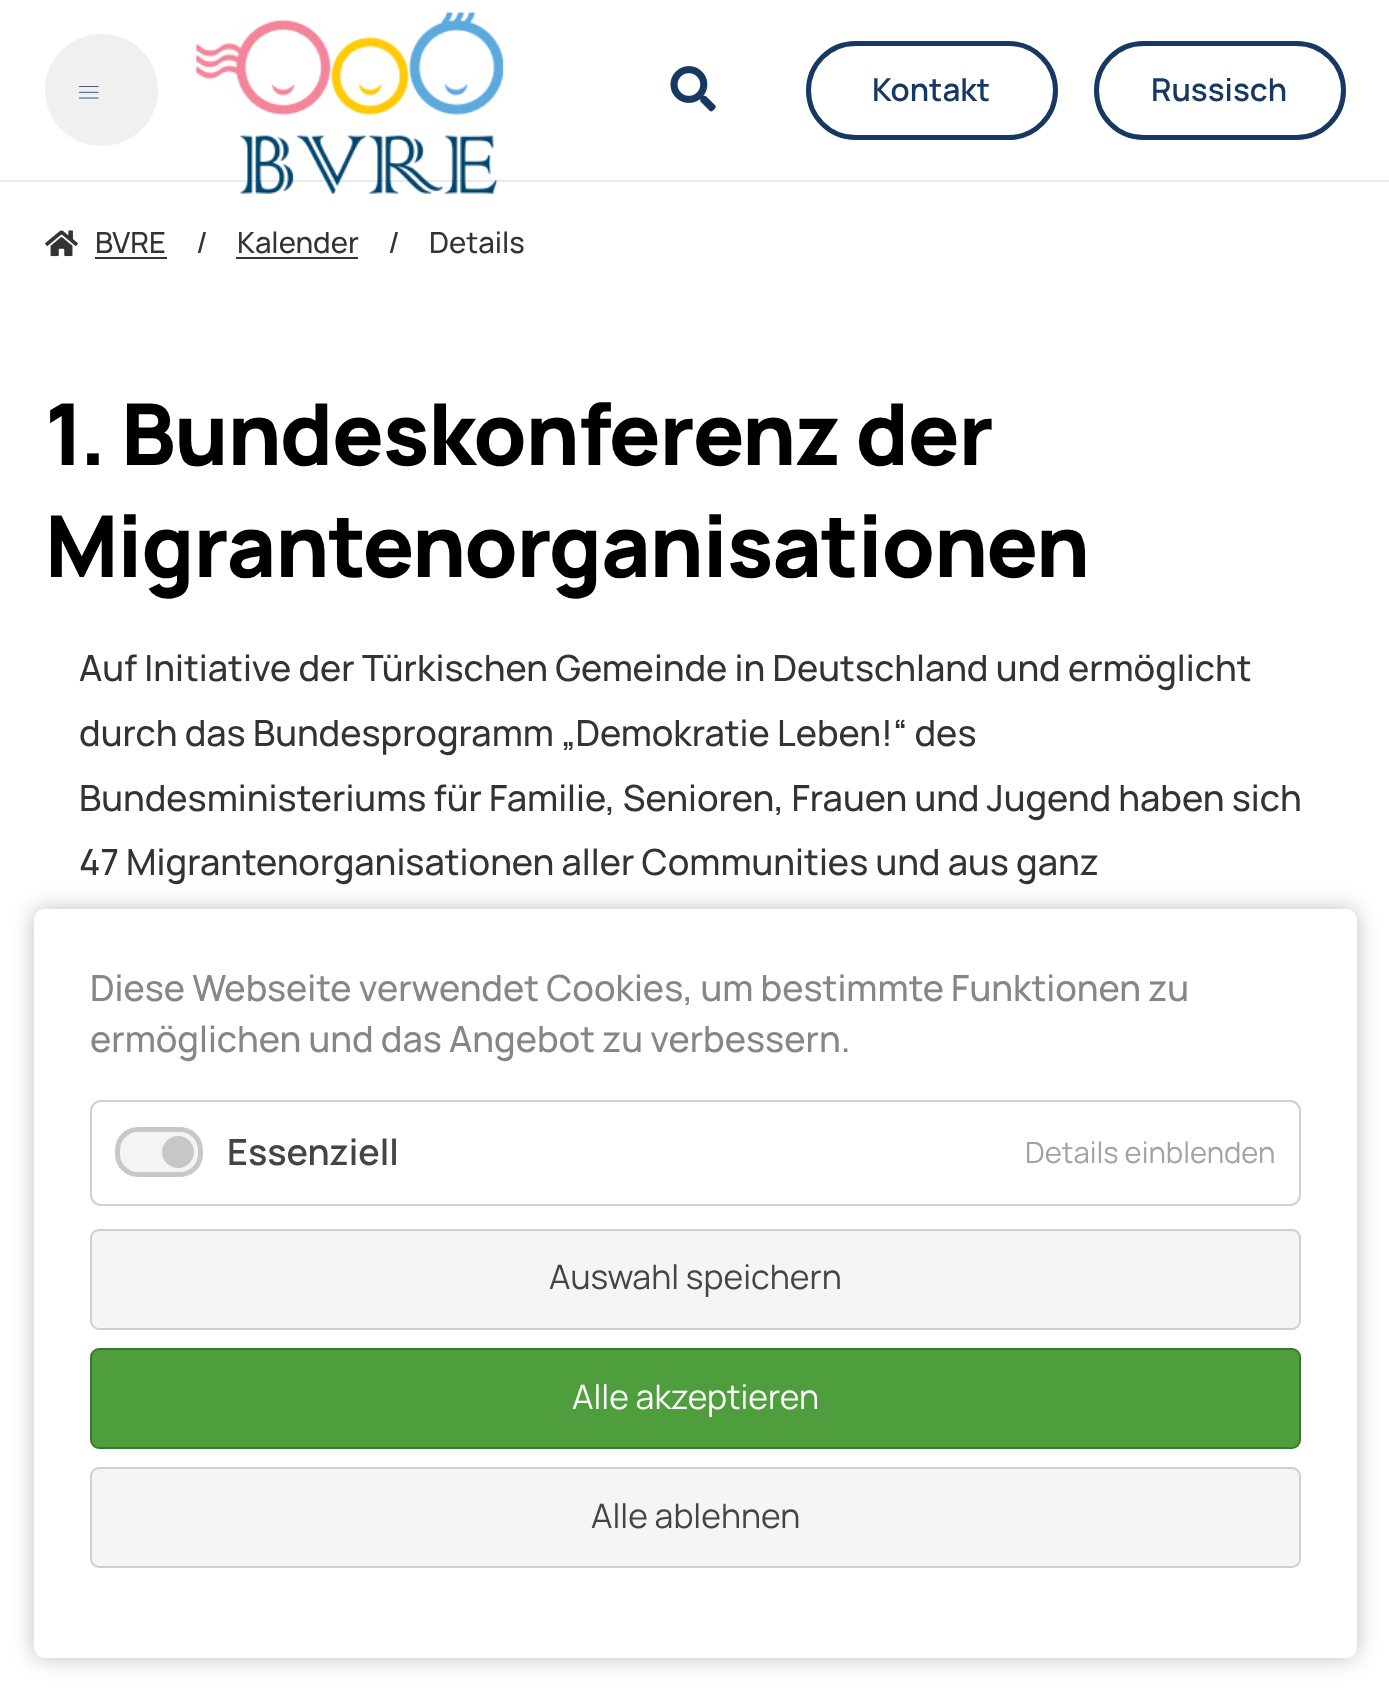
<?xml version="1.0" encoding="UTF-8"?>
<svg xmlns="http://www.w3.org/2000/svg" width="1389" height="1690">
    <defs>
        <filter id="blur1" x="-50%" y="-200%" width="200%" height="500%"><feGaussianBlur stdDeviation="11"/></filter>
    </defs>
    <rect width="100%" height="100%" fill="#FFFFFF"/>
    <rect x="45" y="34" width="113" height="112" rx="56" fill="#F0F0F0"/>
    <image x="79" y="86" width="20" height="13" href="img_01.png"/>
    <rect x="0" y="180" width="1389" height="2" fill="#E9ECEF"/>
    <image x="196" y="12" width="309" height="182" href="img_02.png"/>
    <image x="670" y="66" width="46" height="46" href="img_03.png"/>
    <rect x="808.5" y="43.5" width="247" height="94" rx="47" fill="none" stroke="#173863" stroke-width="5"/>
    <text x="872" y="101" font-family="Manrope" font-size="31.5" font-weight="600" fill="#173863">Kontakt</text>
    <rect x="1096.5" y="43.5" width="247" height="94" rx="47" fill="none" stroke="#173863" stroke-width="5"/>
    <text x="1151" y="101" font-family="Manrope" font-size="31.5" font-weight="600" fill="#173863">Russisch</text>
    <image x="45" y="230" width="33" height="27" href="img_04.png"/>
    <text x="95" y="253" font-family="Manrope" font-size="29.25" font-weight="500" fill="#333333">BVRE</text>
    <rect x="95" y="257" width="72" height="2" fill="#333333"/>
    <text x="196" y="253" font-family="Manrope" font-size="29.25" font-weight="500" fill="#333333">/</text>
    <text x="237" y="253" font-family="Manrope" font-size="29.25" font-weight="500" fill="#333333">Kalender</text>
    <rect x="236" y="257" width="122" height="2" fill="#333333"/>
    <text x="388" y="253" font-family="Manrope" font-size="29.25" font-weight="500" fill="#333333">/</text>
    <text x="429" y="253" font-family="Manrope" font-size="29.25" font-weight="500" fill="#333333">Details</text>
    <text font-family="Manrope" font-size="85.5" font-weight="800" letter-spacing="-1.25" fill="#000000">
        <tspan x="45" y="465">1. Bundeskonferenz der</tspan>
        <tspan x="45" y="577">Migrantenorganisationen</tspan>
    </text>
    <text font-family="Manrope" font-size="36" font-weight="500" fill="#333333">
        <tspan x="79" y="681">Auf Initiative der Türkischen Gemeinde in Deutschland und ermöglicht</tspan>
        <tspan x="79" y="746">durch das Bundesprogramm „Demokratie Leben!“ des</tspan>
        <tspan x="79" y="811">Bundesministeriums für Familie, Senioren, Frauen und Jugend haben sich</tspan>
        <tspan x="79" y="875">47 Migrantenorganisationen aller Communities und aus ganz</tspan>
    </text>
    <rect x="34" y="909" width="1323" height="749" rx="11" fill="#000000" fill-opacity="0.25" filter="url(#blur1)"/>
    <rect x="34" y="909" width="1323" height="749" rx="11" fill="#FFFFFF"/>
    <text font-family="Manrope" font-size="36" font-weight="500" fill="#868686">
        <tspan x="90" y="1001">Diese Webseite verwendet Cookies, um bestimmte Funktionen zu</tspan>
        <tspan x="90" y="1052">ermöglichen und das Angebot zu verbessern.</tspan>
    </text>
    <rect x="91" y="1101" width="1209" height="104" rx="10" fill="none" stroke="#D0D0D0" stroke-width="2"/>
    <rect x="117.5" y="1129.5" width="83" height="45" rx="20.5" fill="#F4F4F4" stroke="#C8C7C5" stroke-width="5"/>
    <circle cx="178" cy="1152" r="16" fill="#C8C7C5"/>
    <text x="227" y="1165" font-family="Manrope" font-size="36" font-weight="600" fill="#444444">Essenziell</text>
    <text x="1025" y="1163" font-family="Manrope" font-size="29.25" fill="#A2A2A2">Details einblenden</text>
    <rect x="91" y="1230" width="1209" height="99" rx="8" fill="#F5F5F5" stroke="#CFCFCF" stroke-width="2"/>
    <text x="549" y="1289" font-family="Manrope" font-size="33.75" fill="#444444">Auswahl speichern</text>
    <rect x="91" y="1349" width="1209" height="99" rx="8" fill="#4E9E3E" stroke="#3E7830" stroke-width="2"/>
    <text x="572" y="1409" font-family="Manrope" font-size="33.75" fill="#FFFFFF">Alle akzeptieren</text>
    <rect x="91" y="1468" width="1209" height="99" rx="8" fill="#F5F5F5" stroke="#CFCFCF" stroke-width="2"/>
    <text x="591" y="1528" font-family="Manrope" font-size="33.75" fill="#444444">Alle ablehnen</text>
</svg>
